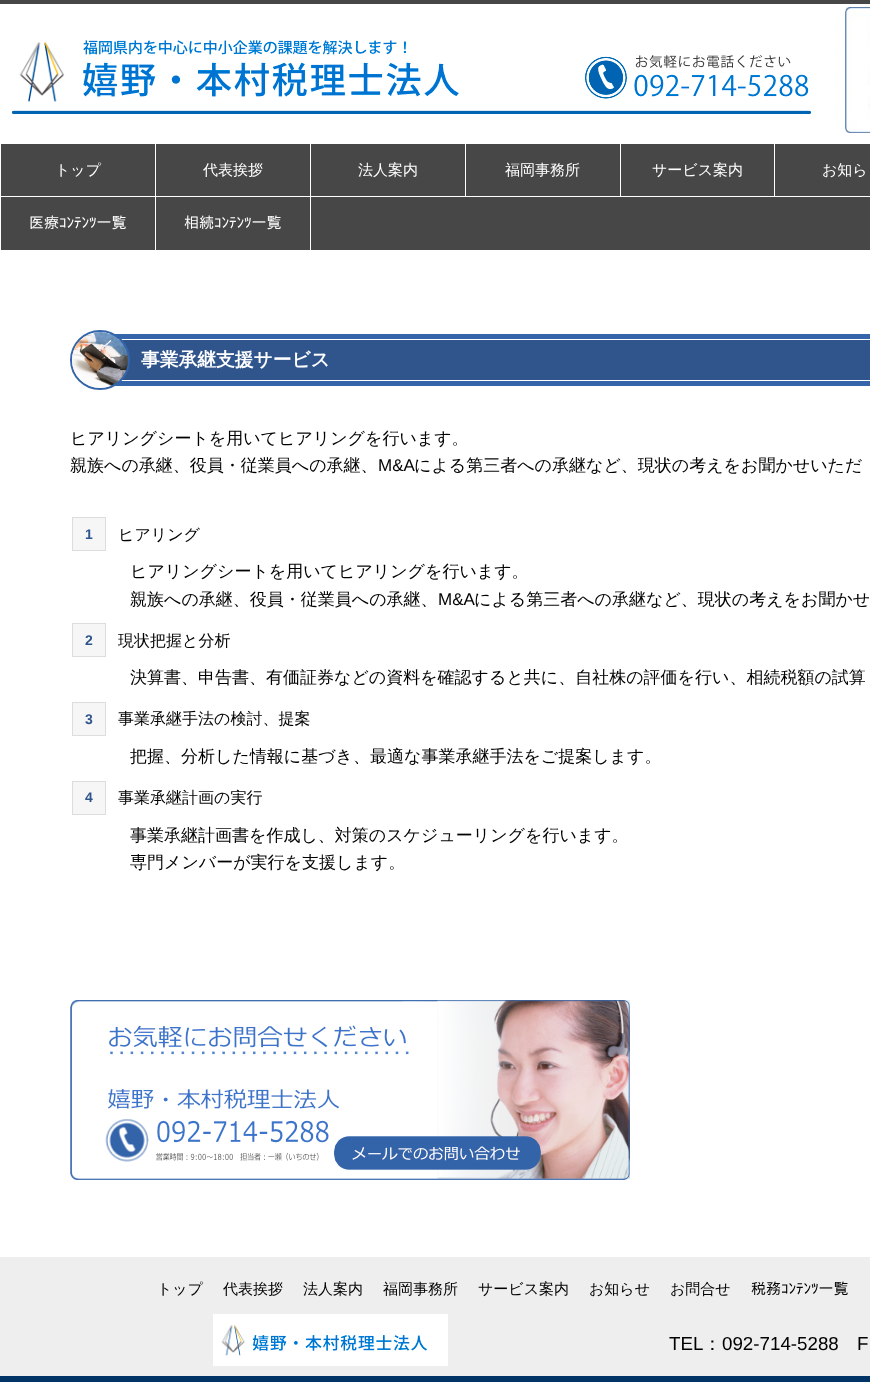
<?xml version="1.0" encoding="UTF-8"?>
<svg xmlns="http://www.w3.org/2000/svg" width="870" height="1382">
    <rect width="100%" height="100%" fill="#FFFFFF"/>
    <rect x="0" y="0" width="870" height="4" fill="#474747"/>
    <image x="12" y="40" width="799" height="74" href="img_01.png"/>
    <image x="845" y="7" width="25" height="126" href="img_02.png"/>
    <rect x="1" y="144" width="869" height="106" fill="#474747"/>
    <text x="55" y="175" font-family="WenQuanYi Zen Hei" font-size="15" font-weight="500" fill="#FFFFFF">トップ</text>
    <rect x="155" y="196" width="156" height="1" fill="#FFFFFF"/>
    <rect x="155" y="196" width="1" height="54" fill="#FFFFFF"/>
    <rect x="0" y="196" width="156" height="1" fill="#FFFFFF"/>
    <rect x="155" y="143" width="1" height="54" fill="#FFFFFF"/>
    <text x="203" y="175" font-family="WenQuanYi Zen Hei" font-size="15" font-weight="500" fill="#FFFFFF">代表挨拶</text>
    <rect x="774" y="196" width="96" height="1" fill="#FFFFFF"/>
    <rect x="774" y="143" width="1" height="54" fill="#FFFFFF"/>
    <rect x="620" y="196" width="155" height="1" fill="#FFFFFF"/>
    <rect x="620" y="143" width="1" height="54" fill="#FFFFFF"/>
    <rect x="465" y="196" width="156" height="1" fill="#FFFFFF"/>
    <rect x="465" y="143" width="1" height="54" fill="#FFFFFF"/>
    <rect x="310" y="196" width="1" height="54" fill="#FFFFFF"/>
    <rect x="310" y="196" width="156" height="1" fill="#FFFFFF"/>
    <rect x="310" y="143" width="1" height="54" fill="#FFFFFF"/>
    <text x="358" y="175" font-family="WenQuanYi Zen Hei" font-size="15" font-weight="500" fill="#FFFFFF">法人案内</text>
    <text x="505" y="175" font-family="WenQuanYi Zen Hei" font-size="15" font-weight="500" fill="#FFFFFF">福岡事務所</text>
    <text x="652" y="175" font-family="WenQuanYi Zen Hei" font-size="15" font-weight="500" fill="#FFFFFF">サービス案内</text>
    <text x="822" y="175" font-family="WenQuanYi Zen Hei" font-size="15" font-weight="500" fill="#FFFFFF">お知ら</text>
    <text x="29" y="228" font-family="IPAPGothic" font-size="15" fill="#FFFFFF">医療ｺﾝﾃﾝﾂ一覧</text>
    <text x="184" y="228" font-family="IPAPGothic" font-size="15" fill="#FFFFFF">相続ｺﾝﾃﾝﾂ一覧</text>
    <rect x="110" y="334" width="760" height="52" fill="#3465AB"/>
    <rect x="119" y="340" width="751" height="40" fill="#30558D"/>
    <rect x="105.5" y="339.5" width="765" height="41" fill="none" stroke="#FFFFFF"/>
    <circle cx="100" cy="360" r="29" fill="none" stroke="#3465AB" stroke-width="2"/>
    <image x="72" y="332" width="56" height="56" href="img_03.png"/>
    <text x="141" y="366" font-family="WenQuanYi Zen Hei" font-size="18.75" font-weight="700" fill="#FFFFFF">事業承継支援サービス</text>
    <text font-family="WenQuanYi Zen Hei" font-size="17" font-weight="500" fill="#000000">
        <tspan x="70" y="444">ヒアリングシートを用いてヒアリングを行います。</tspan>
        <tspan x="70" y="471">親族への承継、役員・従業員への承継、</tspan>
    </text>
    <text x="378" y="471" font-family="Liberation Sans" font-size="17" fill="#000000">M&amp;A</text>
    <text x="414" y="471" font-family="WenQuanYi Zen Hei" font-size="17" font-weight="500" fill="#000000">による第三者への承継など、現状の考えをお聞かせいただ</text>
    <rect x="72.5" y="517.5" width="33" height="33" fill="#F6F6F6" stroke="#DDDDDD"/>
    <text x="85" y="539" font-family="Liberation Sans" font-size="14" font-weight="700" fill="#30558D">1</text>
    <text x="118" y="540" font-family="WenQuanYi Zen Hei" font-size="16" font-weight="500" fill="#000000">ヒアリング</text>
    <text font-family="WenQuanYi Zen Hei" font-size="17" font-weight="500" fill="#000000">
        <tspan x="130" y="577">ヒアリングシートを用いてヒアリングを行います。</tspan>
        <tspan x="130" y="605">親族への承継、役員・従業員への承継、</tspan>
    </text>
    <text x="438" y="605" font-family="Liberation Sans" font-size="17" fill="#000000">M&amp;A</text>
    <text x="474" y="605" font-family="WenQuanYi Zen Hei" font-size="17" font-weight="500" fill="#000000">による第三者への承継など、現状の考えをお聞かせ</text>
    <rect x="72.5" y="623.5" width="33" height="33" fill="#F6F6F6" stroke="#DDDDDD"/>
    <text x="85" y="645" font-family="Liberation Sans" font-size="14" font-weight="700" fill="#30558D">2</text>
    <text x="118" y="646" font-family="WenQuanYi Zen Hei" font-size="16" font-weight="500" fill="#000000">現状把握と分析</text>
    <text x="130" y="683" font-family="WenQuanYi Zen Hei" font-size="17" font-weight="500" fill="#000000">決算書、申告書、有価証券などの資料を確認すると共に、自社株の評価を行い、相続税額の試算</text>
    <rect x="72.5" y="702.5" width="33" height="33" fill="#F6F6F6" stroke="#DDDDDD"/>
    <text x="85" y="724" font-family="Liberation Sans" font-size="14" font-weight="700" fill="#30558D">3</text>
    <text x="118" y="724" font-family="WenQuanYi Zen Hei" font-size="16" font-weight="500" fill="#000000">事業承継手法の検討、提案</text>
    <text x="130" y="762" font-family="WenQuanYi Zen Hei" font-size="17" font-weight="500" fill="#000000">把握、分析した情報に基づき、最適な事業承継手法をご提案します。</text>
    <rect x="72.5" y="781.5" width="33" height="33" fill="#F6F6F6" stroke="#DDDDDD"/>
    <text x="85" y="802" font-family="Liberation Sans" font-size="14" font-weight="700" fill="#30558D">4</text>
    <text x="118" y="803" font-family="WenQuanYi Zen Hei" font-size="16" font-weight="500" fill="#000000">事業承継計画の実行</text>
    <text font-family="WenQuanYi Zen Hei" font-size="17" font-weight="500" fill="#000000">
        <tspan x="130" y="841">事業承継計画書を作成し、対策のスケジューリングを行います。</tspan>
        <tspan x="130" y="868">専門メンバーが実行を支援します。</tspan>
    </text>
    <image x="70" y="1000" width="560" height="180" href="img_04.png"/>
    <rect x="0" y="1257" width="870" height="119" fill="#EEEEEE"/>
    <text x="157" y="1294" font-family="WenQuanYi Zen Hei" font-size="15" font-weight="500" fill="#000000">トップ</text>
    <text x="223" y="1294" font-family="WenQuanYi Zen Hei" font-size="15" font-weight="500" fill="#000000">代表挨拶</text>
    <text x="303" y="1294" font-family="WenQuanYi Zen Hei" font-size="15" font-weight="500" fill="#000000">法人案内</text>
    <text x="383" y="1294" font-family="WenQuanYi Zen Hei" font-size="15" font-weight="500" fill="#000000">福岡事務所</text>
    <text x="478" y="1294" font-family="WenQuanYi Zen Hei" font-size="15" font-weight="500" fill="#000000">サービス案内</text>
    <text x="589" y="1294" font-family="WenQuanYi Zen Hei" font-size="15" font-weight="500" fill="#000000">お知らせ</text>
    <text x="670" y="1294" font-family="WenQuanYi Zen Hei" font-size="15" font-weight="500" fill="#000000">お問合せ</text>
    <text x="751" y="1294" font-family="IPAPGothic" font-size="15" fill="#000000">税務ｺﾝﾃﾝﾂ一覧</text>
    <image x="213" y="1314" width="235" height="52" href="img_05.png"/>
    <text x="669" y="1350" font-family="Liberation Sans" font-size="18.75" fill="#000000">TEL</text>
    <text x="703" y="1350" font-family="WenQuanYi Zen Hei" font-size="18.75" font-weight="500" fill="#000000">：</text>
    <text x="722" y="1350" font-family="Liberation Sans" font-size="18.75" fill="#000000">092-714-5288</text>
    <text x="857" y="1350" font-family="Liberation Sans" font-size="18.75" fill="#000000">F</text>
    <rect x="0" y="1376" width="870" height="6" fill="#003366"/>
</svg>
